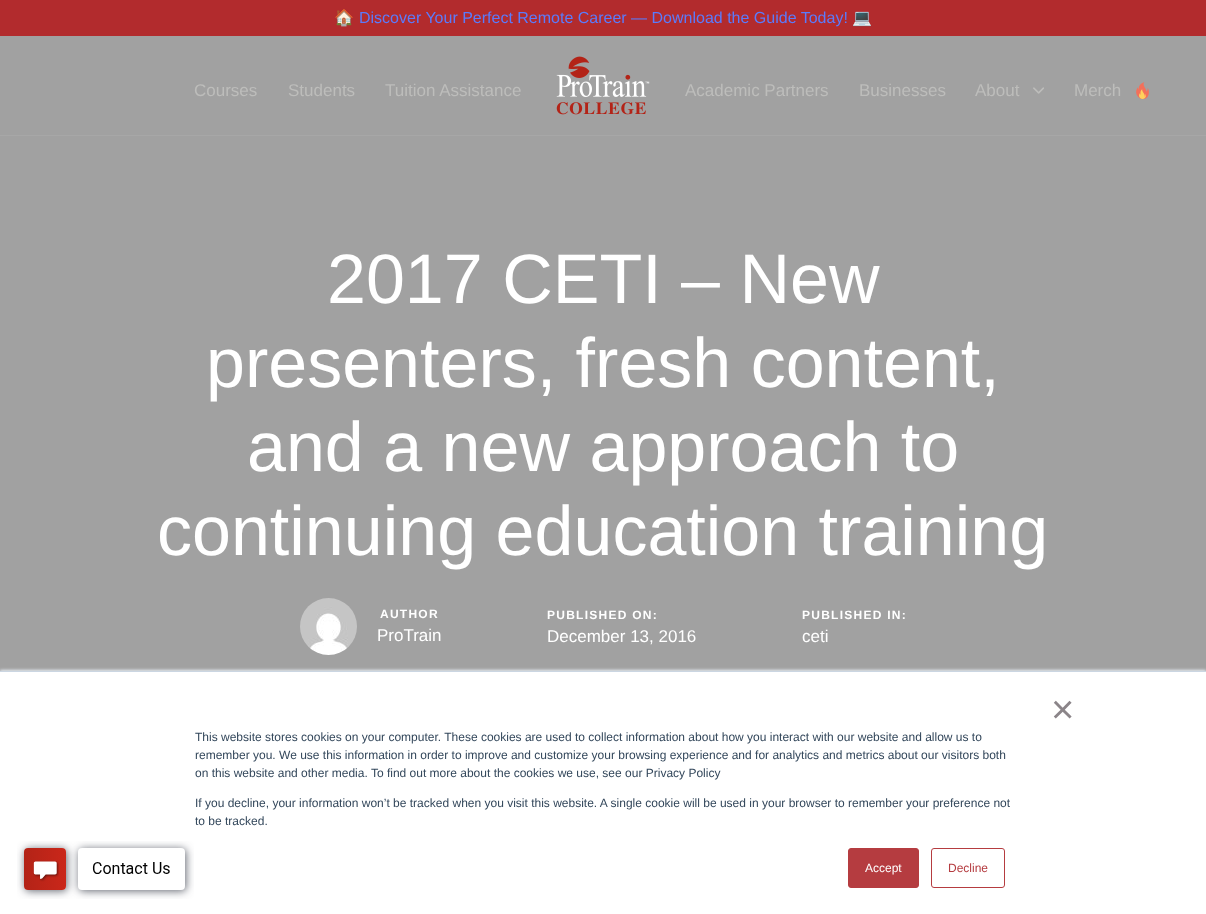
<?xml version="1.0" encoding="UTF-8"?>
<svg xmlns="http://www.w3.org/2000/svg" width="1206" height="914">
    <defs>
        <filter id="blur1" x="-50%" y="-200%" width="200%" height="500%"><feGaussianBlur stdDeviation="1.5"/></filter>
    </defs>
    <rect width="100%" height="100%" fill="#A1A1A1"/>
    <rect x="0" y="0" width="1206" height="36" fill="#B22B2D"/>
    <text x="334" y="23" font-family="Noto Color Emoji" font-size="16" fill="#5B7BFB">🏠</text>
    <text x="359" y="23" font-family="Liberation Sans" font-size="16" fill="#5B7BFB">Discover Your Perfect Remote Career — Download the Guide Today!</text>
    <text x="852" y="23" font-family="Noto Color Emoji" font-size="16" fill="#5B7BFB">💻</text>
    <rect x="0" y="135" width="1206" height="1" fill="#A7A7A7"/>
    <text x="194" y="96" font-family="Liberation Sans" font-size="17" fill="#BDBDBB">Courses</text>
    <text x="288" y="96" font-family="Liberation Sans" font-size="17" fill="#BDBDBB">Students</text>
    <text x="385" y="96" font-family="Liberation Sans" font-size="17" fill="#BDBDBB">Tuition Assistance</text>
    <image x="556" y="56" width="94" height="59" href="img_01.png"/>
    <text x="685" y="96" font-family="Liberation Sans" font-size="17" fill="#BDBDBB">Academic Partners</text>
    <text x="859" y="96" font-family="Liberation Sans" font-size="17" fill="#BDBDBB">Businesses</text>
    <text x="975" y="96" font-family="Liberation Sans" font-size="17" fill="#BDBDBB">About</text>
    <image x="1033" y="87" width="11" height="7" href="img_02.png"/>
    <text x="1074" y="96" font-family="Liberation Sans" font-size="17" fill="#BDBDBB">Merch</text>
    <image x="1136" y="82" width="13" height="17" href="img_03.png"/>
    <text x="327" y="303" font-family="Liberation Sans" font-size="70" fill="#FFFFFF">2017 CETI – New</text>
    <text x="206" y="387" font-family="Liberation Sans" font-size="70" fill="#FFFFFF">presenters, fresh content,</text>
    <text x="247" y="471" font-family="Liberation Sans" font-size="70" fill="#FFFFFF">and a new approach to</text>
    <text x="157" y="555" font-family="Liberation Sans" font-size="70" fill="#FFFFFF">continuing education training</text>
    <image x="300" y="598" width="57" height="57" href="img_04.png"/>
    <text x="380" y="618" font-family="Liberation Sans" font-size="12" font-weight="700" letter-spacing="1.25" fill="#FFFFFF">AUTHOR</text>
    <text x="377" y="641" font-family="Liberation Sans" font-size="17" fill="#FFFFFF">ProTrain</text>
    <text x="547" y="619" font-family="Liberation Sans" font-size="12" font-weight="700" letter-spacing="1.25" fill="#FFFFFF">PUBLISHED ON:</text>
    <text x="547" y="642" font-family="Liberation Sans" font-size="17" fill="#FFFFFF">December 13, 2016</text>
    <text x="802" y="619" font-family="Liberation Sans" font-size="12" font-weight="700" letter-spacing="1.25" fill="#FFFFFF">PUBLISHED IN:</text>
    <text x="802" y="642" font-family="Liberation Sans" font-size="17" fill="#FFFFFF">ceti</text>
    <rect x="0" y="670" width="1206" height="243" fill="#EAF0F6" filter="url(#blur1)"/>
    <rect x="0" y="672" width="1206" height="242" fill="#FFFFFF"/>
    <image x="17" y="841" width="177" height="58" href="img_05.png"/>
    <rect x="0" y="671" width="1206" height="1" fill="#CBD6E2"/>
    <text x="1051" y="723" font-family="Liberation Sans" font-size="40" fill="#8B8589">×</text>
    <text font-family="Liberation Sans" font-size="12" fill="#33475B">
        <tspan x="195" y="741">This website stores cookies on your computer. These cookies are used to collect information about how you interact with our website and allow us to</tspan>
        <tspan x="195" y="759">remember you. We use this information in order to improve and customize your browsing experience and for analytics and metrics about our visitors both</tspan>
        <tspan x="195" y="777">on this website and other media. To find out more about the cookies we use, see our Privacy Policy</tspan>
    </text>
    <text font-family="Liberation Sans" font-size="12" fill="#33475B">
        <tspan x="195" y="807">If you decline, your information won’t be tracked when you visit this website. A single cookie will be used in your browser to remember your preference not</tspan>
        <tspan x="195" y="825">to be tracked.</tspan>
    </text>
    <rect x="848.5" y="848.5" width="70" height="39" rx="2.5" fill="#B53C40" stroke="#B53C40"/>
    <text x="865" y="872" font-family="Liberation Sans" font-size="12" fill="#FFFFFF">Accept</text>
    <rect x="931.5" y="848.5" width="73" height="39" rx="2.5" fill="none" stroke="#B53C40"/>
    <text x="948" y="872" font-family="Liberation Sans" font-size="12" fill="#B53C40">Decline</text>
</svg>
